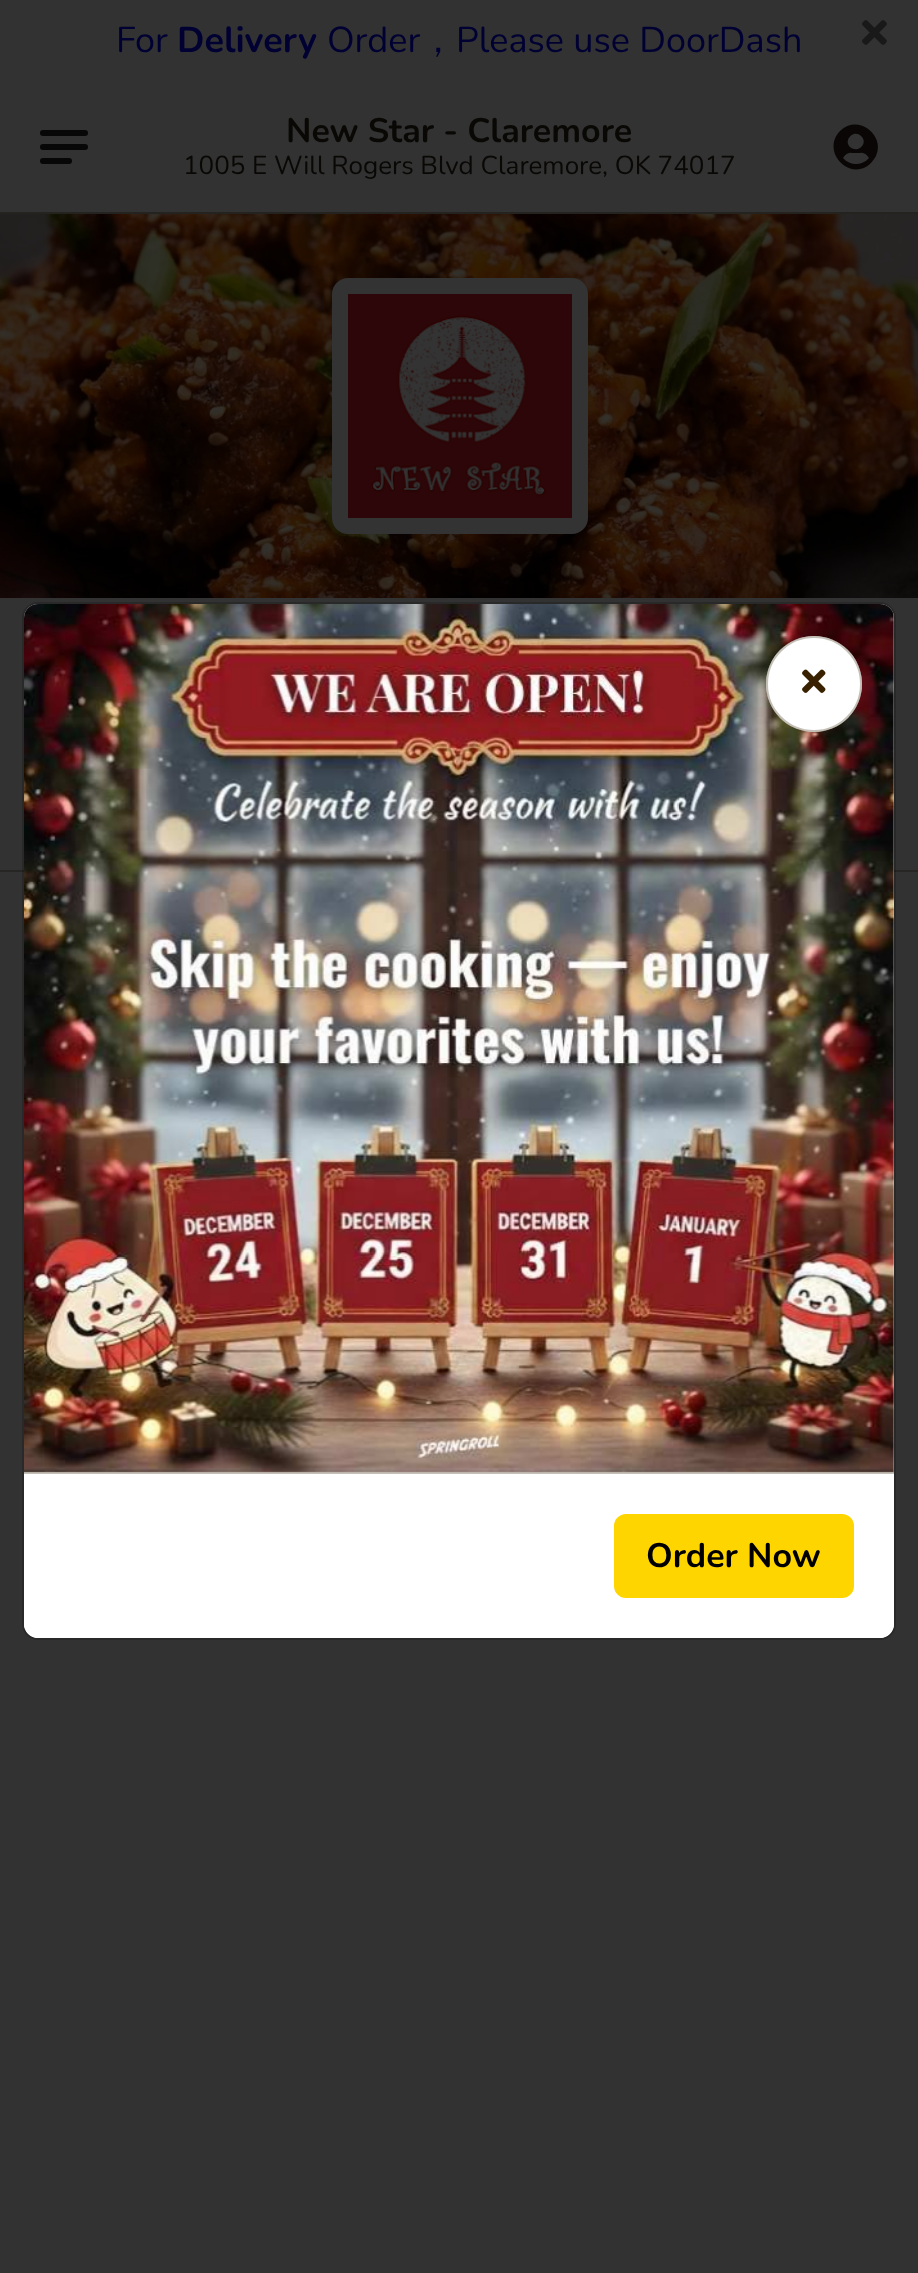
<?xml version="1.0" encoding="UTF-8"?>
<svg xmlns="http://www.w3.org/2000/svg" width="918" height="2273">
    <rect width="100%" height="100%" fill="#323232"/>
    <text x="116" y="52" font-family="Nunito" font-size="36" fill="#000033">For</text>
    <text x="177" y="52" font-family="Nunito" font-size="36" font-weight="700" fill="#000033">Delivery</text>
    <text x="327" y="52" font-family="Nunito" font-size="36" fill="#000033">Order</text>
    <text x="420" y="52" font-family="WenQuanYi Zen Hei" font-size="36" font-weight="500" fill="#000033">，</text>
    <text x="456" y="52" font-family="Nunito" font-size="36" fill="#000033">Please use DoorDash</text>
    <image x="862" y="20" width="25" height="25" href="img_01.png"/>
    <rect x="0" y="212" width="918" height="2" fill="#242320"/>
    <rect x="40" y="130" width="48" height="6" rx="3" fill="#070708"/>
    <rect x="40" y="144" width="48" height="6" rx="3" fill="#070708"/>
    <rect x="40" y="158" width="32" height="6" rx="3" fill="#070708"/>
    <text x="286" y="142" font-family="Nunito" font-size="34" font-weight="700" fill="#090805">New Star - Claremore</text>
    <text x="183" y="174" font-family="Nunito" font-size="26" fill="#090805">1005 E Will Rogers Blvd Claremore, OK 74017</text>
    <path d="M 840 131 C 861 111 892 142 871 163 C 851 183 820 152 840 131 Z M 861 136 C 854 129 843 140 850 147 C 858 154 869 143 861 136 Z M 843 158 C 850 166 862 166 869 158 C 867 155 864 152 860 153 H 856 H 852 C 848 152 845 155 843 158 Z" fill="#0A0605"/>
    <rect x="0" y="870" width="918" height="2" fill="#272625"/>
    <image x="0" y="214" width="918" height="384" href="img_02.png"/>
    <rect x="332" y="278" width="256" height="256" rx="16" fill="#333333"/>
    <image x="348" y="294" width="224" height="224" href="img_03.png"/>
    <rect x="24" y="604" width="870" height="1034" rx="14" fill="#FFFFFF"/>
    <rect x="23" y="603" width="872" height="1036" rx="15" fill="none" stroke="#000000" stroke-opacity="0.18" stroke-width="2"/>
    <path d="M 24 1472 H 894 V 1624 C 894 1631.5 887.5 1638 880 1638 H 38 C 30.5 1638 24 1631.5 24 1624 Z" fill="#FFFFFF"/>
    <rect x="24" y="1472" width="870" height="2" fill="#C4C0B7"/>
    <image x="24" y="604" width="870" height="869" href="img_04.png"/>
    <circle cx="814" cy="684" r="48" fill="#FFFFFF"/>
    <circle cx="814" cy="684" r="47" fill="none" stroke="#948D7C" stroke-opacity="0.55" stroke-width="2"/>
    <image x="802" y="669" width="24" height="24" href="img_05.png"/>
    <rect x="615" y="1515" width="238" height="82" rx="11" fill="#FFD500" stroke="#FFD500" stroke-width="2"/>
    <text x="646" y="1567" font-family="Nunito" font-size="34" font-weight="700" fill="#000000">Order Now</text>
</svg>
